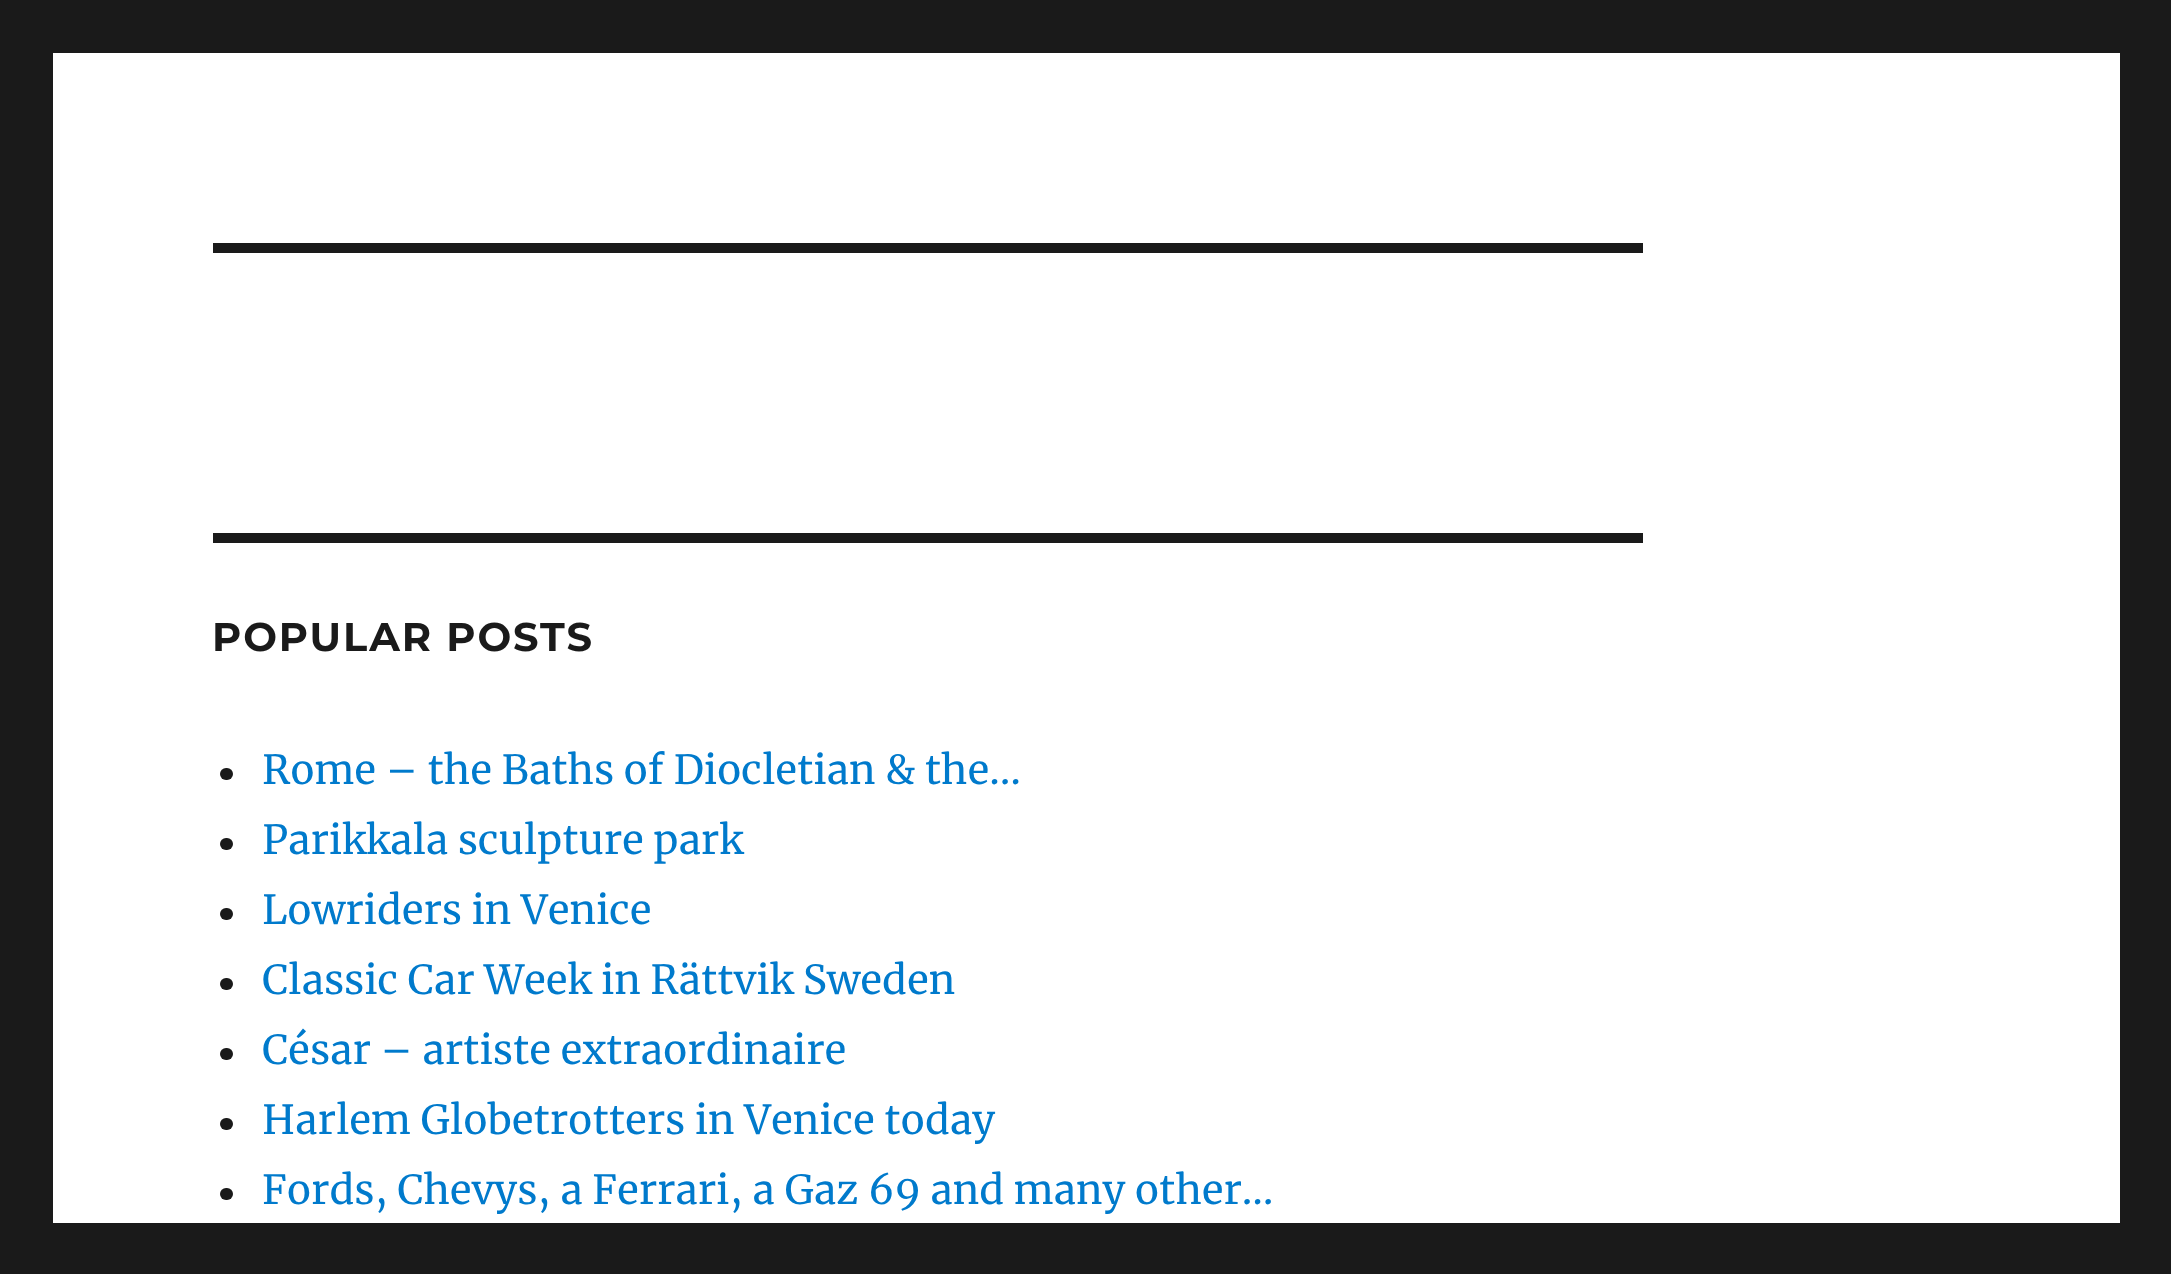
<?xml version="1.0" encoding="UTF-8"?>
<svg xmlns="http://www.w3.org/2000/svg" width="2171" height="1274">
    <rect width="100%" height="100%" fill="#1A1A1A"/>
    <rect x="53" y="53" width="2067" height="1170" fill="#FFFFFF"/>
    <rect x="213" y="243" width="1430" height="10" fill="#1A1A1A"/>
    <rect x="213" y="533" width="1430" height="10" fill="#1A1A1A"/>
    <text x="212" y="651" font-family="Montserrat" font-size="40" font-weight="100" letter-spacing="1.9" fill="#1A1A1A">POPULAR POSTS</text>
    <rect x="220" y="768" width="13" height="12" rx="6" fill="#1A1A1A"/>
    <text x="262" y="784" font-family="Merriweather" font-size="40" fill="#007ACC">Rome – the Baths of Diocletian &amp; the…</text>
    <rect x="220" y="838" width="13" height="12" rx="6" fill="#1A1A1A"/>
    <text x="262" y="854" font-family="Merriweather" font-size="40" fill="#007ACC">Parikkala sculpture park</text>
    <rect x="220" y="908" width="13" height="12" rx="6" fill="#1A1A1A"/>
    <text x="262" y="924" font-family="Merriweather" font-size="40" fill="#007ACC">Lowriders in Venice</text>
    <rect x="220" y="978" width="13" height="12" rx="6" fill="#1A1A1A"/>
    <text x="262" y="994" font-family="Merriweather" font-size="40" fill="#007ACC">Classic Car Week in Rättvik Sweden</text>
    <rect x="220" y="1048" width="13" height="12" rx="6" fill="#1A1A1A"/>
    <text x="262" y="1064" font-family="Merriweather" font-size="40" fill="#007ACC">César – artiste extraordinaire</text>
    <rect x="220" y="1118" width="13" height="12" rx="6" fill="#1A1A1A"/>
    <text x="262" y="1134" font-family="Merriweather" font-size="40" fill="#007ACC">Harlem Globetrotters in Venice today</text>
    <rect x="220" y="1188" width="13" height="12" rx="6" fill="#1A1A1A"/>
    <text x="262" y="1204" font-family="Merriweather" font-size="40" fill="#007ACC">Fords, Chevys, a Ferrari, a Gaz 69 and many other…</text>
</svg>
